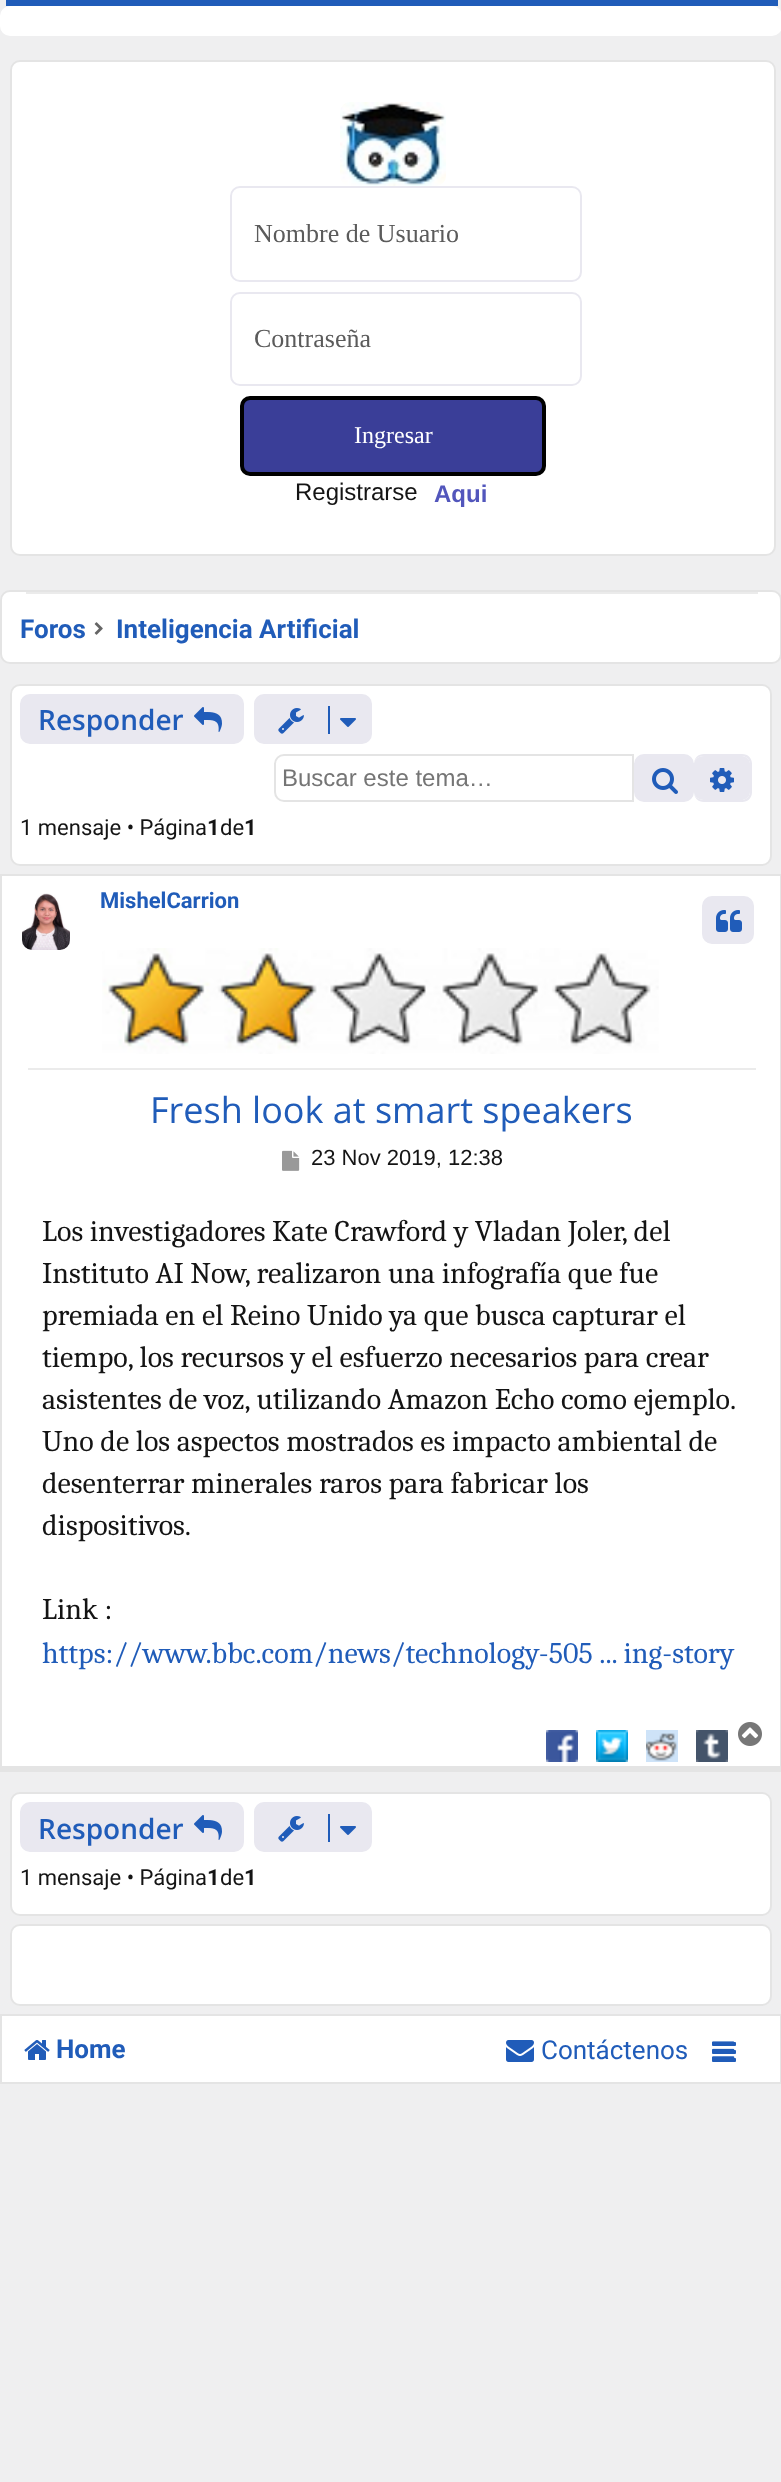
<?xml version="1.0" encoding="UTF-8"?>
<svg xmlns="http://www.w3.org/2000/svg" width="781" height="2482">
    <rect width="100%" height="100%" fill="#EFEFF0"/>
    <rect x="6" y="0" width="772" height="6" fill="#205CB9"/>
    <rect x="0" y="6" width="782" height="30" rx="10" fill="#FFFFFF"/>
    <rect x="11" y="61" width="764" height="494" rx="9" fill="#FFFFFF" stroke="#E4E4E4" stroke-width="2"/>
    <image x="340" y="102" width="106" height="84" href="img_01.png"/>
    <rect x="231" y="187" width="350" height="94" rx="9" fill="none" stroke="#E9E8F0" stroke-width="2"/>
    <text x="254" y="242" font-family="Liberation Serif" font-size="26" fill="#5B5B5B">Nombre de Usuario</text>
    <rect x="231" y="293" width="350" height="92" rx="9" fill="none" stroke="#E9E8F0" stroke-width="2"/>
    <text x="254" y="347" font-family="Liberation Serif" font-size="26" fill="#5B5B5B">Contraseña</text>
    <rect x="242" y="398" width="302" height="76" rx="8" fill="#3A3E98" stroke="#000000" stroke-width="4"/>
    <text x="354" y="443" font-family="Liberation Serif" font-size="24" fill="#FFFFFF">Ingresar</text>
    <text x="295" y="500" font-family="Liberation Sans" font-size="24" fill="#141414">Registrarse</text>
    <text x="434" y="502" font-family="Liberation Sans" font-size="24" font-weight="700" fill="#5256BC">Aqui</text>
    <rect x="1" y="591" width="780" height="72" rx="9" fill="#FFFFFF" stroke="#E4E4E4" stroke-width="2"/>
    <rect x="26" y="592" width="732" height="2" fill="#EBEBEB"/>
    <text x="20" y="638" font-family="Roboto" font-size="26" font-weight="700" fill="#205CB9">Foros</text>
    <image x="94" y="622" width="9" height="13" href="img_02.png"/>
    <text x="116" y="638" font-family="Roboto" font-size="26" font-weight="700" fill="#205CB9">Inteligencia Artificial</text>
    <rect x="11" y="685" width="760" height="180" rx="9" fill="#FFFFFF" stroke="#E4E4E4" stroke-width="2"/>
    <rect x="21" y="695" width="222" height="48" rx="9" fill="#E9E8F0" stroke="#E9E8F0" stroke-width="2"/>
    <text x="38" y="730" font-family="Open Sans" font-size="28" font-weight="600" fill="#205CB9">Responder</text>
    <image x="194" y="707" width="28" height="25" href="img_03.png"/>
    <rect x="255" y="695" width="116" height="48" rx="9" fill="#E9E8F0" stroke="#E9E8F0" stroke-width="2"/>
    <image x="278" y="708" width="26" height="26" href="img_04.png"/>
    <rect x="328" y="706" width="2" height="28" fill="#205CB9"/>
    <image x="340" y="718" width="16" height="9" href="img_05.png"/>
    <path d="M 284 755 H 633 V 801 H 284 C 279 801 275 797 275 792 V 764 C 275 759 279 755 284 755 Z" fill="none" stroke="#E4E4E4" stroke-width="2"/>
    <text x="282" y="786" font-family="Liberation Sans" font-size="24" fill="#757575">Buscar este tema…</text>
    <rect x="635" y="755" width="58" height="46" rx="9" fill="#E9E8F0" stroke="#E9E8F0" stroke-width="2"/>
    <image x="652" y="768" width="26" height="26" href="img_06.png"/>
    <path d="M 704 756 H 742 C 746 756 750 760 750 764 V 792 C 750 796 746 800 742 800 H 704 C 698 800 694 796 694 792 V 764 C 694 760 698 756 704 756 Z" fill="#E9E8F0"/>
    <path d="M 704 754 H 742 C 748 754 752 758 752 764 V 792 C 752 798 748 802 742 802 H 704 C 698 802 694 798 694 792 V 764 C 694 758 698 754 704 754 Z M 704 756 H 742 C 746 756 750 760 750 764 V 792 C 750 796 746 800 742 800 H 704 C 698 800 694 796 694 792 V 764 C 694 760 698 756 704 756 Z" fill="#E9E8F0" fill-rule="evenodd"/>
    <image x="710" y="768" width="24" height="24" href="img_07.png"/>
    <text x="20" y="835" font-family="Roboto" font-size="22" fill="#141414">1 mensaje • Página</text>
    <text x="207" y="835" font-family="Roboto" font-size="22" font-weight="700" fill="#141414">1</text>
    <text x="220" y="835" font-family="Roboto" font-size="22" fill="#141414">de</text>
    <text x="244" y="835" font-family="Roboto" font-size="22" font-weight="700" fill="#141414">1</text>
    <rect x="2" y="876" width="778" height="890" fill="#FFFFFF"/>
    <rect x="0" y="874" width="781" height="2" fill="#E4E4E4"/>
    <rect x="780" y="874" width="1" height="898" fill="#E4E4E4"/>
    <rect x="0" y="1766" width="781" height="6" fill="#E4E4E4"/>
    <rect x="0" y="874" width="2" height="898" fill="#E4E4E4"/>
    <rect x="28" y="1068" width="728" height="2" fill="#EBEBEB"/>
    <image x="22" y="893" width="48" height="57" href="img_08.png"/>
    <text x="100" y="908" font-family="Roboto" font-size="22" font-weight="700" fill="#205CB9">MishelCarrion</text>
    <image x="102" y="948" width="557" height="106" href="img_09.png"/>
    <rect x="703" y="897" width="50" height="46" rx="9" fill="#E9E8F0" stroke="#E9E8F0" stroke-width="2"/>
    <image x="716" y="910" width="26" height="22" href="img_10.png"/>
    <text x="150" y="1123" font-family="Open Sans" font-size="36" fill="#205CB9">Fresh look at smart speakers</text>
    <image x="282" y="1150" width="18" height="21" href="img_11.png"/>
    <text x="311" y="1165" font-family="Liberation Sans" font-size="22" fill="#141414">23 Nov 2019, 12:38</text>
    <text font-family="Caladea" font-size="30" fill="#141414">
        <tspan x="42" y="1241">Los investigadores Kate Crawford y Vladan Joler, del</tspan>
        <tspan x="42" y="1283">Instituto AI Now, realizaron una infografía que fue</tspan>
        <tspan x="42" y="1325">premiada en el Reino Unido ya que busca capturar el</tspan>
        <tspan x="42" y="1367">tiempo, los recursos y el esfuerzo necesarios para crear</tspan>
        <tspan x="42" y="1409">asistentes de voz, utilizando Amazon Echo como ejemplo.</tspan>
        <tspan x="42" y="1451">Uno de los aspectos mostrados es impacto ambiental de</tspan>
        <tspan x="42" y="1493">desenterrar minerales raros para fabricar los</tspan>
        <tspan x="42" y="1535">dispositivos.</tspan>
    </text>
    <text x="42" y="1619" font-family="Caladea" font-size="30" fill="#141414">Link :</text>
    <text x="42" y="1663" font-family="Caladea" font-size="30" fill="#205CB9">https://www.bbc.com/news/technology-505 ... ing-story</text>
    <image x="546" y="1730" width="32" height="32" href="img_12.png"/>
    <image x="596" y="1730" width="32" height="32" href="img_13.png"/>
    <image x="646" y="1730" width="32" height="32" href="img_14.png"/>
    <image x="696" y="1730" width="32" height="32" href="img_15.png"/>
    <image x="738" y="1722" width="24" height="24" href="img_16.png"/>
    <rect x="11" y="1793" width="760" height="122" rx="9" fill="#FFFFFF" stroke="#E4E4E4" stroke-width="2"/>
    <rect x="21" y="1803" width="222" height="48" rx="9" fill="#E9E8F0" stroke="#E9E8F0" stroke-width="2"/>
    <text x="38" y="1839" font-family="Open Sans" font-size="28" font-weight="600" fill="#205CB9">Responder</text>
    <image x="194" y="1815" width="28" height="25" href="img_03.png"/>
    <rect x="255" y="1803" width="116" height="48" rx="9" fill="#E9E8F0" stroke="#E9E8F0" stroke-width="2"/>
    <image x="278" y="1816" width="26" height="26" href="img_04.png"/>
    <rect x="328" y="1814" width="2" height="28" fill="#205CB9"/>
    <image x="340" y="1826" width="16" height="9" href="img_05.png"/>
    <text x="20" y="1885" font-family="Roboto" font-size="22" fill="#141414">1 mensaje • Página</text>
    <text x="207" y="1885" font-family="Roboto" font-size="22" font-weight="700" fill="#141414">1</text>
    <text x="220" y="1885" font-family="Roboto" font-size="22" fill="#141414">de</text>
    <text x="244" y="1885" font-family="Roboto" font-size="22" font-weight="700" fill="#141414">1</text>
    <rect x="11" y="1925" width="760" height="80" rx="9" fill="#FFFFFF" stroke="#E4E4E4" stroke-width="2"/>
    <rect x="1" y="2015" width="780" height="68" fill="#FFFFFF" stroke="#E4E4E4" stroke-width="2"/>
    <image x="24" y="2040" width="26" height="20" href="img_17.png"/>
    <text x="56" y="2058" font-family="Roboto" font-size="26" font-weight="700" fill="#205CB9">Home</text>
    <image x="506" y="2040" width="28" height="22" href="img_18.png"/>
    <text x="541" y="2059" font-family="Roboto" font-size="26" fill="#205CB9">Contáctenos</text>
    <image x="712" y="2042" width="24" height="20" href="img_20.png"/>
    <image x="712" y="2041" width="23" height="18" href="img_19.png"/>
</svg>
